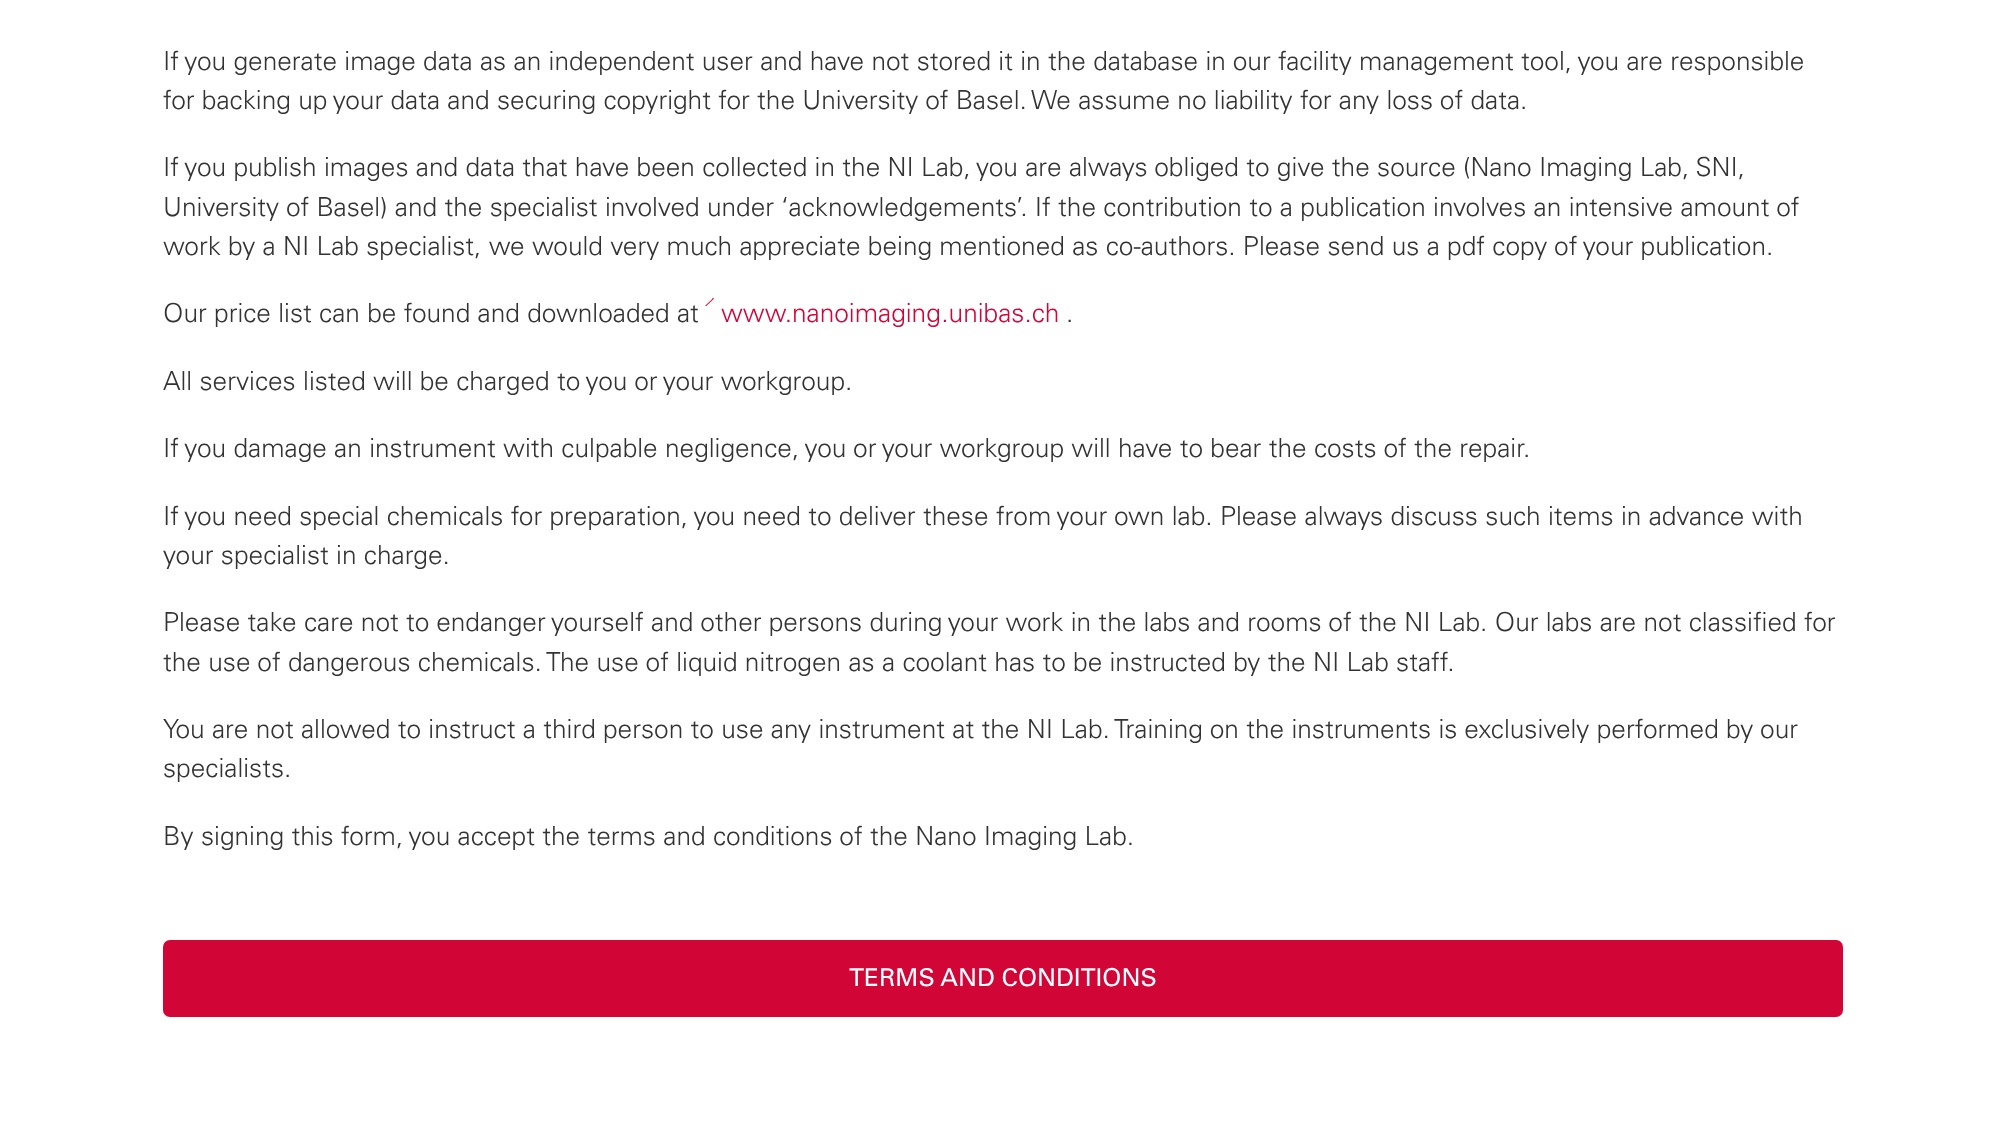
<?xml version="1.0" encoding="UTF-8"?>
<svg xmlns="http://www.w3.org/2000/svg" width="2005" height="1148">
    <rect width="100%" height="100%" fill="#FFFFFF"/>
    <text font-family="'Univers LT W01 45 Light'" font-size="26.25" font-weight="300" fill="#333333">
        <tspan x="163" y="70">If you generate image data as an independent user and have not stored it in the database in our facility management tool, you are responsible</tspan>
        <tspan x="163" y="109">for backing up your data and securing copyright for the University of Basel. We assume no liability for any loss of data.</tspan>
    </text>
    <text font-family="'Univers LT W01 45 Light'" font-size="26.25" font-weight="300" fill="#333333">
        <tspan x="163" y="176">If you publish images and data that have been collected in the NI Lab, you are always obliged to give the source (Nano Imaging Lab, SNI,</tspan>
        <tspan x="163" y="216">University of Basel) and the specialist involved under ‘acknowledgements’. If the contribution to a publication involves an intensive amount of</tspan>
        <tspan x="163" y="255">work by a NI Lab specialist, we would very much appreciate being mentioned as co-authors. Please send us a pdf copy of your publication.</tspan>
    </text>
    <text x="163" y="322" font-family="'Univers LT W01 45 Light'" font-size="26.25" font-weight="300" fill="#333333">Our price list can be found and downloaded at</text>
    <image x="705" y="298" width="9" height="8" href="img_01.png"/>
    <text x="721" y="322" font-family="'Univers LT W01 45 Light'" font-size="26.25" font-weight="300" fill="#D20537">www.nanoimaging.unibas.ch</text>
    <text x="1066" y="322" font-family="'Univers LT W01 45 Light'" font-size="26.25" font-weight="300" fill="#333333">.</text>
    <text x="163" y="390" font-family="'Univers LT W01 45 Light'" font-size="26.25" font-weight="300" fill="#333333">All services listed will be charged to you or your workgroup.</text>
    <text x="163" y="457" font-family="'Univers LT W01 45 Light'" font-size="26.25" font-weight="300" fill="#333333">If you damage an instrument with culpable negligence, you or your workgroup will have to bear the costs of the repair.</text>
    <text font-family="'Univers LT W01 45 Light'" font-size="26.25" font-weight="300" fill="#333333">
        <tspan x="163" y="525">If you need special chemicals for preparation, you need to deliver these from your own lab. Please always discuss such items in advance with</tspan>
        <tspan x="163" y="564">your specialist in charge.</tspan>
    </text>
    <text font-family="'Univers LT W01 45 Light'" font-size="26.25" font-weight="300" fill="#333333">
        <tspan x="163" y="631">Please take care not to endanger yourself and other persons during your work in the labs and rooms of the NI Lab. Our labs are not classified for</tspan>
        <tspan x="163" y="671">the use of dangerous chemicals. The use of liquid nitrogen as a coolant has to be instructed by the NI Lab staff.</tspan>
    </text>
    <text font-family="'Univers LT W01 45 Light'" font-size="26.25" font-weight="300" fill="#333333">
        <tspan x="163" y="738">You are not allowed to instruct a third person to use any instrument at the NI Lab. Training on the instruments is exclusively performed by our</tspan>
        <tspan x="163" y="777">specialists.</tspan>
    </text>
    <text x="163" y="845" font-family="'Univers LT W01 45 Light'" font-size="26.25" font-weight="300" fill="#333333">By signing this form, you accept the terms and conditions of the Nano Imaging Lab.</text>
    <rect x="163" y="940" width="1680" height="77" rx="7" fill="#D20537"/>
    <text x="849" y="986" font-family="'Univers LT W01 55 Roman'" font-size="24.5" fill="#FFFFFF">TERMS AND CONDITIONS</text>
</svg>
